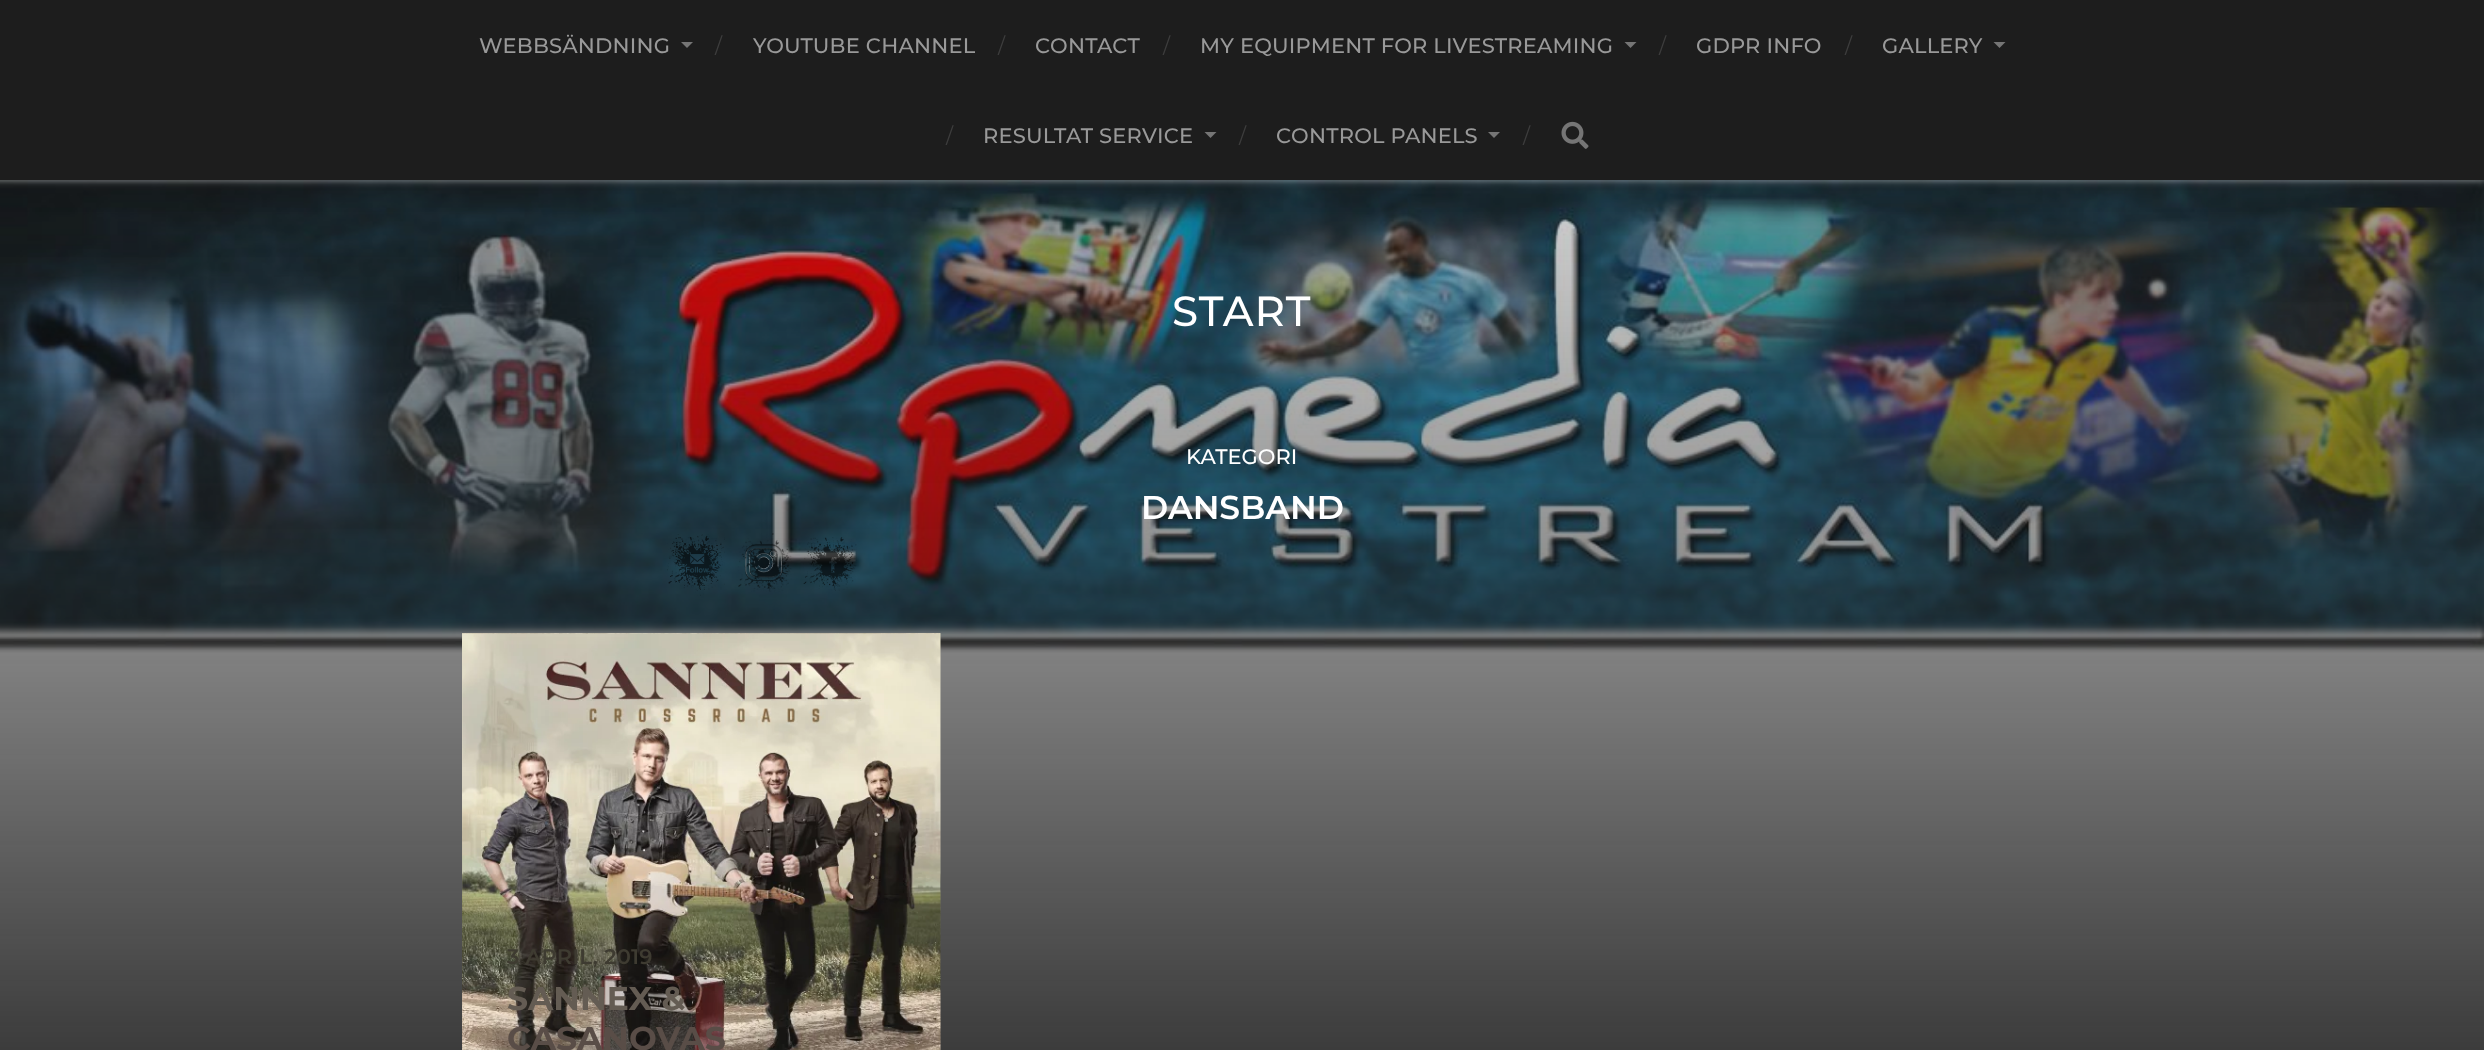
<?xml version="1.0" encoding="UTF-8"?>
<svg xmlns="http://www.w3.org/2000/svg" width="2484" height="1050">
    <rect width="100%" height="100%" fill="#1D1D1D"/>
    <text x="479" y="53" font-family="Montserrat" font-size="21" font-weight="100" letter-spacing="0.2" fill="#999999">WEBBSÄNDNING</text>
    <path d="M 681 42 H 693 L 687 48 Z" fill="#757575"/>
    <text x="715" y="53" font-family="'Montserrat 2'" font-size="21" font-weight="100" fill="#3D3D3D">/</text>
    <text x="753" y="53" font-family="Montserrat" font-size="21" font-weight="100" letter-spacing="0.2" fill="#999999">YOUTUBE CHANNEL</text>
    <text x="998" y="53" font-family="'Montserrat 2'" font-size="21" font-weight="100" fill="#3D3D3D">/</text>
    <text x="1035" y="53" font-family="Montserrat" font-size="21" font-weight="100" letter-spacing="0.2" fill="#999999">CONTACT</text>
    <text x="1163" y="53" font-family="'Montserrat 2'" font-size="21" font-weight="100" fill="#3D3D3D">/</text>
    <text x="1200" y="53" font-family="Montserrat" font-size="21" font-weight="100" letter-spacing="0.2" fill="#999999">MY EQUIPMENT FOR LIVESTREAMING</text>
    <path d="M 1624.5 42 H 1636.5 L 1630.5 48 Z" fill="#757575"/>
    <text x="1659" y="53" font-family="'Montserrat 2'" font-size="21" font-weight="100" fill="#3D3D3D">/</text>
    <text x="1696" y="53" font-family="Montserrat" font-size="21" font-weight="100" letter-spacing="0.2" fill="#999999">GDPR INFO</text>
    <text x="1845" y="53" font-family="'Montserrat 2'" font-size="21" font-weight="100" fill="#3D3D3D">/</text>
    <text x="1882" y="53" font-family="Montserrat" font-size="21" font-weight="100" letter-spacing="0.2" fill="#999999">GALLERY</text>
    <path d="M 1993.5 42 H 2005.5 L 1999.5 48 Z" fill="#757575"/>
    <text x="946" y="143" font-family="'Montserrat 2'" font-size="21" font-weight="100" fill="#3D3D3D">/</text>
    <text x="983" y="143" font-family="Montserrat" font-size="21" font-weight="100" letter-spacing="0.2" fill="#999999">RESULTAT SERVICE</text>
    <path d="M 1204.5 132 H 1216.5 L 1210.5 138 Z" fill="#757575"/>
    <text x="1239" y="143" font-family="'Montserrat 2'" font-size="21" font-weight="100" fill="#3D3D3D">/</text>
    <text x="1276" y="143" font-family="Montserrat" font-size="21" font-weight="100" letter-spacing="0.2" fill="#999999">CONTROL PANELS</text>
    <path d="M 1488 132 H 1500 L 1494 138 Z" fill="#757575"/>
    <text x="1523" y="143" font-family="'Montserrat 2'" font-size="21" font-weight="100" fill="#3D3D3D">/</text>
    <image x="1561" y="121" width="28" height="28" href="img_01.png"/>
    <image x="0" y="180" width="2484" height="870" href="img_02.png"/>
    <text x="1172" y="326" font-family="Montserrat" font-size="42" font-weight="100" letter-spacing="1" fill="#FFFFFF">START</text>
    <text x="1186" y="464" font-family="Montserrat" font-size="21" font-weight="100" fill="#FFFFFF">KATEGORI</text>
    <text x="1141" y="519" font-family="'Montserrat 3'" font-size="33" font-weight="100" fill="#FFFFFF">DANSBAND</text>
    <image x="462" y="633" width="479" height="417" href="img_03.png"/>
    <text x="507" y="964" font-family="'Montserrat 3'" font-size="21" font-weight="100" letter-spacing="0.25" fill="#3E3B31">3 APRIL, 2019</text>
    <text x="507" y="1010" font-family="'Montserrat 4'" font-size="33" font-weight="100" fill="#645C53">SANNEX &amp;</text>
    <text x="507" y="1050" font-family="'Montserrat 4'" font-size="33" font-weight="100" fill="#594D47">CASANOVAS</text>
    <image x="667" y="534" width="58" height="62" href="img_04.png"/>
    <image x="738" y="533" width="54" height="59" href="img_05.png"/>
    <image x="803" y="537" width="54" height="54" href="img_06.png"/>
</svg>
